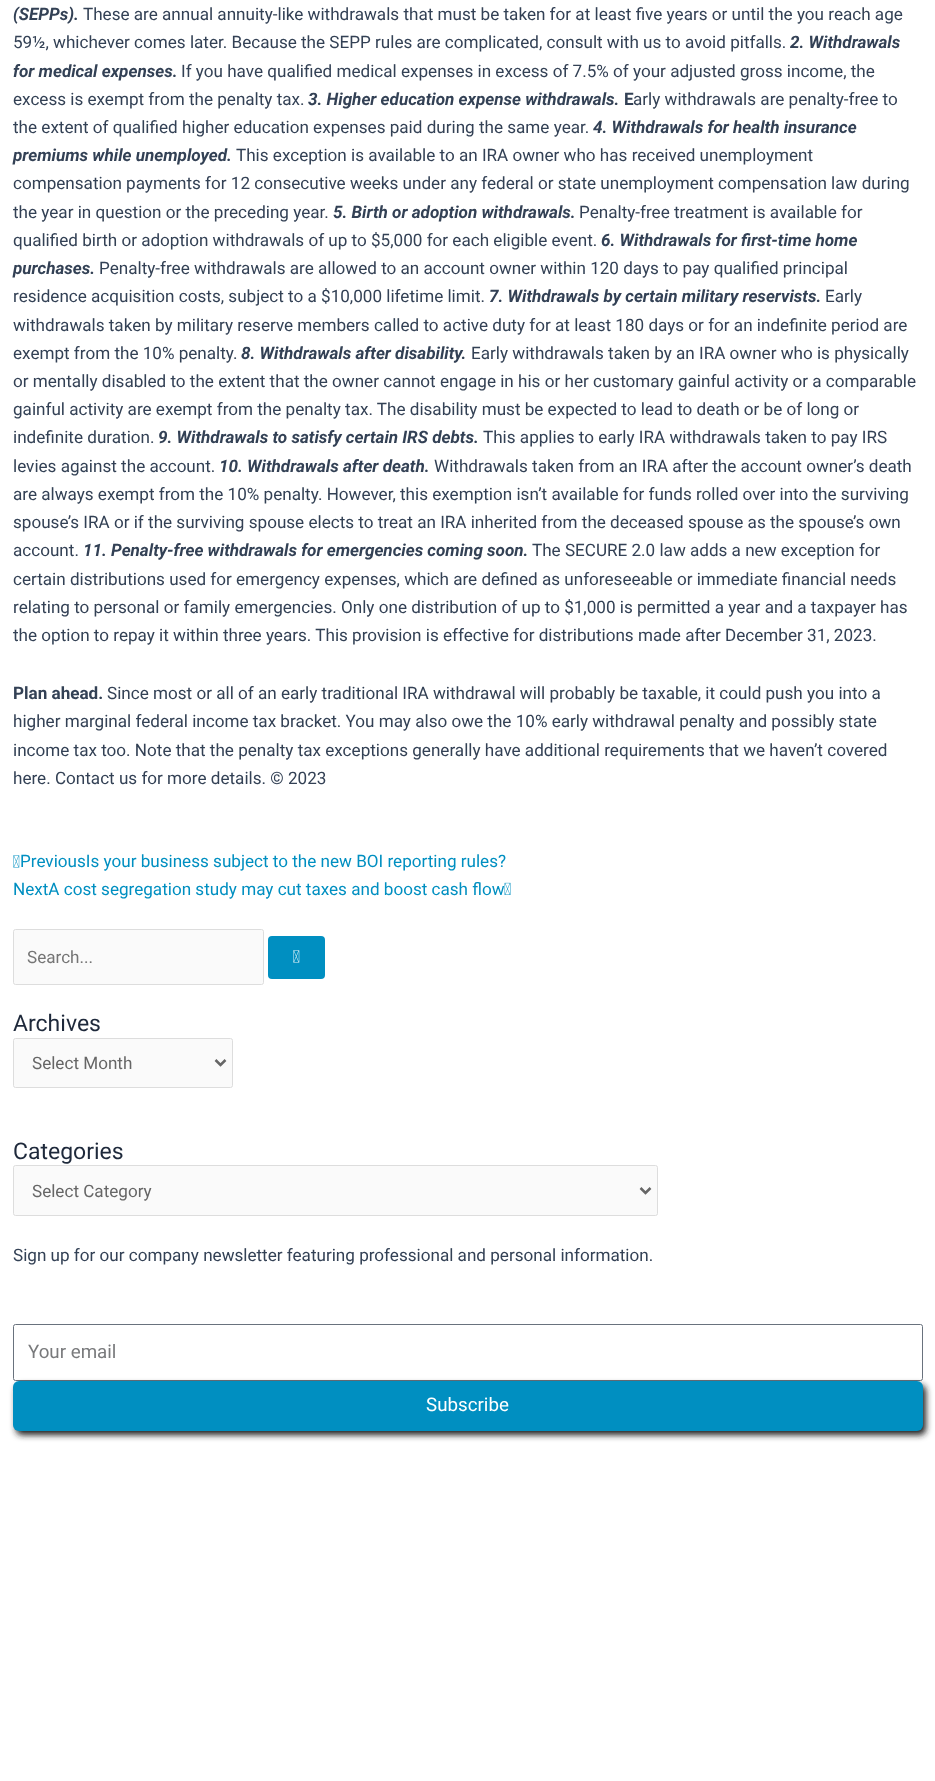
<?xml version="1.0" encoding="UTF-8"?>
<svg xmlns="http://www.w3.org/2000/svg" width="935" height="1781">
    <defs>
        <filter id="blur1" x="-50%" y="-200%" width="200%" height="500%"><feGaussianBlur stdDeviation="3"/></filter>
    </defs>
    <rect width="100%" height="100%" fill="#FFFFFF"/>
    <text x="13" y="20" font-family="Roboto" font-size="17.1" font-weight="700" font-style="italic" fill="#334155">(SEPPs).</text>
    <text x="83" y="20" font-family="Roboto" font-size="17.1" fill="#334155">These are annual annuity-like withdrawals that must be taken for at least five years or until the you reach age</text>
    <text x="13" y="48" font-family="Roboto" font-size="17.1" fill="#334155">59½, whichever comes later. Because the SEPP rules are complicated, consult with us to avoid pitfalls.</text>
    <text x="790" y="48" font-family="Roboto" font-size="17.1" font-weight="700" font-style="italic" fill="#334155">2. Withdrawals</text>
    <text x="13" y="77" font-family="Roboto" font-size="17.1" font-weight="700" font-style="italic" fill="#334155">for medical expenses.</text>
    <text x="181" y="77" font-family="Roboto" font-size="17.1" fill="#334155">If you have qualified medical expenses in excess of 7.5% of your adjusted gross income, the</text>
    <text x="13" y="105" font-family="Roboto" font-size="17.1" fill="#334155">excess is exempt from the penalty tax.</text>
    <text x="308" y="105" font-family="Roboto" font-size="17.1" font-weight="700" font-style="italic" fill="#334155">3. Higher education expense withdrawals.</text>
    <text x="624" y="105" font-family="Roboto" font-size="17.1" font-weight="700" fill="#334155">E</text>
    <text x="633" y="105" font-family="Roboto" font-size="17.1" fill="#334155">arly withdrawals are penalty-free to</text>
    <text x="13" y="133" font-family="Roboto" font-size="17.1" fill="#334155">the extent of qualified higher education expenses paid during the same year.</text>
    <text x="593" y="133" font-family="Roboto" font-size="17.1" font-weight="700" font-style="italic" fill="#334155">4. Withdrawals for health insurance</text>
    <text x="13" y="161" font-family="Roboto" font-size="17.1" font-weight="700" font-style="italic" fill="#334155">premiums while unemployed.</text>
    <text x="236" y="161" font-family="Roboto" font-size="17.1" fill="#334155">This exception is available to an IRA owner who has received unemployment</text>
    <text font-family="Roboto" font-size="17.1" fill="#334155">
        <tspan x="13" y="189">compensation payments for 12 consecutive weeks under any federal or state unemployment compensation law during</tspan>
        <tspan x="13" y="218">the year in question or the preceding year.</tspan>
    </text>
    <text x="333" y="218" font-family="Roboto" font-size="17.1" font-weight="700" font-style="italic" fill="#334155">5. Birth or adoption withdrawals.</text>
    <text x="579" y="218" font-family="Roboto" font-size="17.1" fill="#334155">Penalty-free treatment is available for</text>
    <text x="13" y="246" font-family="Roboto" font-size="17.1" fill="#334155">qualified birth or adoption withdrawals of up to $5,000 for each eligible event.</text>
    <text x="601" y="246" font-family="Roboto" font-size="17.1" font-weight="700" font-style="italic" fill="#334155">6. Withdrawals for first-time home</text>
    <text x="13" y="274" font-family="Roboto" font-size="17.1" font-weight="700" font-style="italic" fill="#334155">purchases.</text>
    <text x="99" y="274" font-family="Roboto" font-size="17.1" fill="#334155">Penalty-free withdrawals are allowed to an account owner within 120 days to pay qualified principal</text>
    <text x="13" y="302" font-family="Roboto" font-size="17.1" fill="#334155">residence acquisition costs, subject to a $10,000 lifetime limit.</text>
    <text x="489" y="302" font-family="Roboto" font-size="17.1" font-weight="700" font-style="italic" fill="#334155">7. Withdrawals by certain military reservists.</text>
    <text x="825" y="302" font-family="Roboto" font-size="17.1" fill="#334155">Early</text>
    <text font-family="Roboto" font-size="17.1" fill="#334155">
        <tspan x="13" y="331">withdrawals taken by military reserve members called to active duty for at least 180 days or for an indefinite period are</tspan>
        <tspan x="13" y="359">exempt from the 10% penalty.</tspan>
    </text>
    <text x="241" y="359" font-family="Roboto" font-size="17.1" font-weight="700" font-style="italic" fill="#334155">8. Withdrawals after disability.</text>
    <text x="471" y="359" font-family="Roboto" font-size="17.1" fill="#334155">Early withdrawals taken by an IRA owner who is physically</text>
    <text font-family="Roboto" font-size="17.1" fill="#334155">
        <tspan x="13" y="387">or mentally disabled to the extent that the owner cannot engage in his or her customary gainful activity or a comparable</tspan>
        <tspan x="13" y="415">gainful activity are exempt from the penalty tax. The disability must be expected to lead to death or be of long or</tspan>
        <tspan x="13" y="443">indefinite duration.</tspan>
    </text>
    <text x="158" y="443" font-family="Roboto" font-size="17.1" font-weight="700" font-style="italic" fill="#334155">9. Withdrawals to satisfy certain IRS debts.</text>
    <text x="483" y="443" font-family="Roboto" font-size="17.1" fill="#334155">This applies to early IRA withdrawals taken to pay IRS</text>
    <text x="13" y="472" font-family="Roboto" font-size="17.1" fill="#334155">levies against the account.</text>
    <text x="219" y="472" font-family="Roboto" font-size="17.1" font-weight="700" font-style="italic" fill="#334155">10. Withdrawals after death.</text>
    <text x="434" y="472" font-family="Roboto" font-size="17.1" fill="#334155">Withdrawals taken from an IRA after the account owner’s death</text>
    <text font-family="Roboto" font-size="17.1" fill="#334155">
        <tspan x="13" y="500">are always exempt from the 10% penalty. However, this exemption isn’t available for funds rolled over into the surviving</tspan>
        <tspan x="13" y="528">spouse’s IRA or if the surviving spouse elects to treat an IRA inherited from the deceased spouse as the spouse’s own</tspan>
        <tspan x="13" y="556">account.</tspan>
    </text>
    <text x="83" y="556" font-family="Roboto" font-size="17.1" font-weight="700" font-style="italic" fill="#334155">11. Penalty-free withdrawals for emergencies coming soon.</text>
    <text x="532" y="556" font-family="Roboto" font-size="17.1" fill="#334155">The SECURE 2.0 law adds a new exception for</text>
    <text font-family="Roboto" font-size="17.1" fill="#334155">
        <tspan x="13" y="585">certain distributions used for emergency expenses, which are defined as unforeseeable or immediate financial needs</tspan>
        <tspan x="13" y="613">relating to personal or family emergencies. Only one distribution of up to $1,000 is permitted a year and a taxpayer has</tspan>
        <tspan x="13" y="641">the option to repay it within three years. This provision is effective for distributions made after December 31, 2023.</tspan>
    </text>
    <text x="13" y="699" font-family="Roboto" font-size="17.1" font-weight="700" fill="#334155">Plan ahead.</text>
    <text x="107" y="699" font-family="Roboto" font-size="17.1" fill="#334155">Since most or all of an early traditional IRA withdrawal will probably be taxable, it could push you into a</text>
    <text font-family="Roboto" font-size="17.1" fill="#334155">
        <tspan x="13" y="727">higher marginal federal income tax bracket. You may also owe the 10% early withdrawal penalty and possibly state</tspan>
        <tspan x="13" y="756">income tax too. Note that the penalty tax exceptions generally have additional requirements that we haven’t covered</tspan>
        <tspan x="13" y="784">here. Contact us for more details. © 2023</tspan>
    </text>
    <image x="13" y="855" width="7" height="13" href="img_01.png"/>
    <text x="20" y="867" font-family="Roboto" font-size="17.1" fill="#008FC1">PreviousIs your business subject to the new BOI reporting rules?</text>
    <text x="13" y="895" font-family="Roboto" font-size="17.1" fill="#008FC1">NextA cost segregation study may cut taxes and boost cash flow</text>
    <image x="504" y="882" width="7" height="13" href="img_02.png"/>
    <rect x="13.5" y="929.5" width="250" height="55" rx="2" fill="#FAFAFA" stroke="#DDDDDD"/>
    <text x="27" y="963" font-family="Roboto" font-size="17.1" fill="#757575">Search...</text>
    <rect x="268" y="936" width="57" height="43" rx="4" fill="#008FC1"/>
    <image x="293" y="950" width="7" height="13" href="img_03.png"/>
    <text x="13" y="1031" font-family="Roboto" font-size="23" fill="#1E293B">Archives</text>
    <rect x="13.5" y="1038.5" width="219" height="49" rx="2" fill="#FAFAFA" stroke="#DDDDDD"/>
    <path d="M 215.5 1060 L 220.5 1065 L 225.5 1060" fill="none" stroke="#666666" stroke-width="2.5"/>
    <text x="32" y="1069" font-family="Roboto" font-size="17.1" fill="#666666">Select Month</text>
    <text x="13" y="1159" font-family="Roboto" font-size="23" fill="#1E293B">Categories</text>
    <rect x="13.5" y="1165.5" width="644" height="50" rx="2" fill="#FAFAFA" stroke="#DDDDDD"/>
    <path d="M 640.5 1188 L 645.5 1193 L 650.5 1188" fill="none" stroke="#666666" stroke-width="2.5"/>
    <text x="32" y="1197" font-family="Roboto" font-size="17.1" fill="#666666">Select Category</text>
    <text x="13" y="1261" font-family="Roboto" font-size="17.1" fill="#334155">Sign up for our company newsletter featuring professional and personal information.</text>
    <rect x="13.5" y="1324.5" width="909" height="56" rx="2" fill="none" stroke="#69727D"/>
    <text x="28" y="1358" font-family="Roboto" font-size="18.75" fill="#797A7C">Your email</text>
    <rect x="16" y="1385" width="910" height="50" rx="6" fill="#202020" filter="url(#blur1)"/>
    <rect x="13" y="1381" width="910" height="50" rx="6" fill="#008FC1"/>
    <text x="426" y="1411" font-family="Roboto" font-size="18.75" fill="#FFFFFF">Subscribe</text>
</svg>
